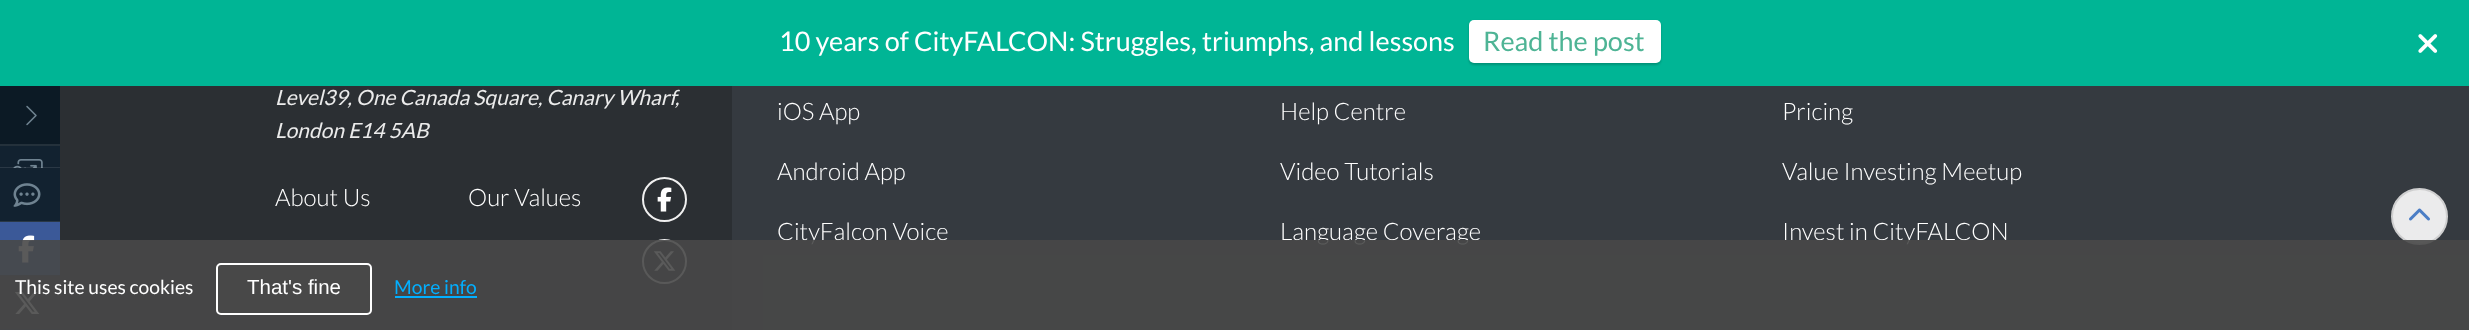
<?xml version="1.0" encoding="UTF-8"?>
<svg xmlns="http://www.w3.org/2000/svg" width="2469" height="330">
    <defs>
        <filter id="blur1" x="-50%" y="-200%" width="200%" height="500%"><feGaussianBlur stdDeviation="1"/></filter>
    </defs>
    <rect width="100%" height="100%" fill="#353A40"/>
    <rect x="0" y="0" width="2469" height="86" fill="#00B595"/>
    <text x="779" y="51" font-family="Lato" font-size="27" fill="#FFFFFF">10 years of CityFALCON: Struggles, triumphs, and lessons</text>
    <rect x="1469" y="21" width="192" height="44" rx="5" fill="#070707" fill-opacity="0.2" filter="url(#blur1)"/>
    <rect x="1469" y="20" width="192" height="43" rx="5" fill="#FFFFFF"/>
    <text x="1483" y="51" font-family="Lato" font-size="27" fill="#4EB495">Read the post</text>
    <image x="2418" y="34" width="20" height="19" href="img_01.png"/>
    <rect x="0" y="146" width="60" height="76" fill="#122230"/>
    <rect x="0" y="86" width="60" height="58" fill="#0C1A25"/>
    <rect x="0" y="144" width="60" height="2" fill="#24313B"/>
    <image x="26" y="105" width="11" height="21" href="img_02.png"/>
    <image x="13" y="159" width="30" height="9" href="img_03.png"/>
    <rect x="0" y="167" width="60" height="1" fill="#FFFFFF" fill-opacity="0.1"/>
    <rect x="0" y="221" width="60" height="1" fill="#FFFFFF" fill-opacity="0.1"/>
    <image x="13" y="183" width="28" height="24" href="img_04.png"/>
    <rect x="0" y="275" width="60" height="1" fill="#122230"/>
    <rect x="0" y="275" width="60" height="1" fill="#FFFFFF" fill-opacity="0.1"/>
    <rect x="0" y="222" width="60" height="53" fill="#3B5998"/>
    <image x="18" y="235" width="17" height="28" href="img_05.png"/>
    <rect x="0" y="329" width="60" height="1" fill="#2A3845"/>
    <image x="15" y="292" width="25" height="22" href="img_06.png"/>
    <rect x="60" y="86" width="672" height="244" fill="#2B2F33"/>
    <text font-family="Lato" font-size="21" font-style="italic" fill="#EBEBEB">
        <tspan x="275" y="105">Level39, One Canada Square, Canary Wharf,</tspan>
        <tspan x="275" y="138">London E14 5AB</tspan>
    </text>
    <text x="275" y="206" font-family="Lato" font-size="24" font-weight="300" fill="#FFFFFF">About Us</text>
    <text x="468" y="206" font-family="Lato" font-size="24" font-weight="300" fill="#FFFFFF">Our Values</text>
    <circle cx="664.5" cy="199.5" r="21.5" fill="none" stroke="#F0F0F0" stroke-width="2"/>
    <image x="657" y="187" width="15" height="25" href="img_07.png"/>
    <circle cx="664.5" cy="261.5" r="21.5" fill="none" stroke="#F0F0F0" stroke-width="2"/>
    <image x="653" y="251" width="23" height="20" href="img_08.png"/>
    <text x="777" y="120" font-family="Lato" font-size="24" font-weight="300" fill="#FFFFFF">iOS App</text>
    <text x="777" y="180" font-family="Lato" font-size="24" font-weight="300" fill="#FFFFFF">Android App</text>
    <text x="777" y="240" font-family="Lato" font-size="24" font-weight="300" fill="#FFFFFF">CityFalcon Voice</text>
    <text x="1280" y="120" font-family="Lato" font-size="24" font-weight="300" fill="#FFFFFF">Help Centre</text>
    <text x="1280" y="180" font-family="Lato" font-size="24" font-weight="300" fill="#FFFFFF">Video Tutorials</text>
    <text x="1280" y="240" font-family="Lato" font-size="24" font-weight="300" fill="#FFFFFF">Language Coverage</text>
    <text x="1782" y="120" font-family="Lato" font-size="24" font-weight="300" fill="#FFFFFF">Pricing</text>
    <text x="1782" y="180" font-family="Lato" font-size="24" font-weight="300" fill="#FFFFFF">Value Investing Meetup</text>
    <text x="1782" y="240" font-family="Lato" font-size="24" font-weight="300" fill="#FFFFFF">Invest in CityFALCON</text>
    <circle cx="2419.5" cy="216.5" r="27.5" fill="#EBEBEC" stroke="#CFCFD0" stroke-width="2"/>
    <image x="2409" y="208" width="21" height="13" href="img_09.png"/>
    <rect x="0" y="240" width="2469" height="90" fill="#484848" fill-opacity="0.9"/>
    <text x="15" y="294" font-family="Lato" font-size="19.25" fill="#FFFFFF">This site uses cookies</text>
    <rect x="217" y="264" width="154" height="50" rx="4" fill="#484848" stroke="#FFFFFF" stroke-width="2"/>
    <text x="247" y="294" font-family="Liberation Sans" font-size="20.5" fill="#FFFFFF">That's fine</text>
    <text x="394" y="294" font-family="Lato" font-size="19.25" fill="#02AFFF">More info</text>
    <rect x="395" y="296" width="82" height="2" fill="#02AFFF"/>
</svg>
